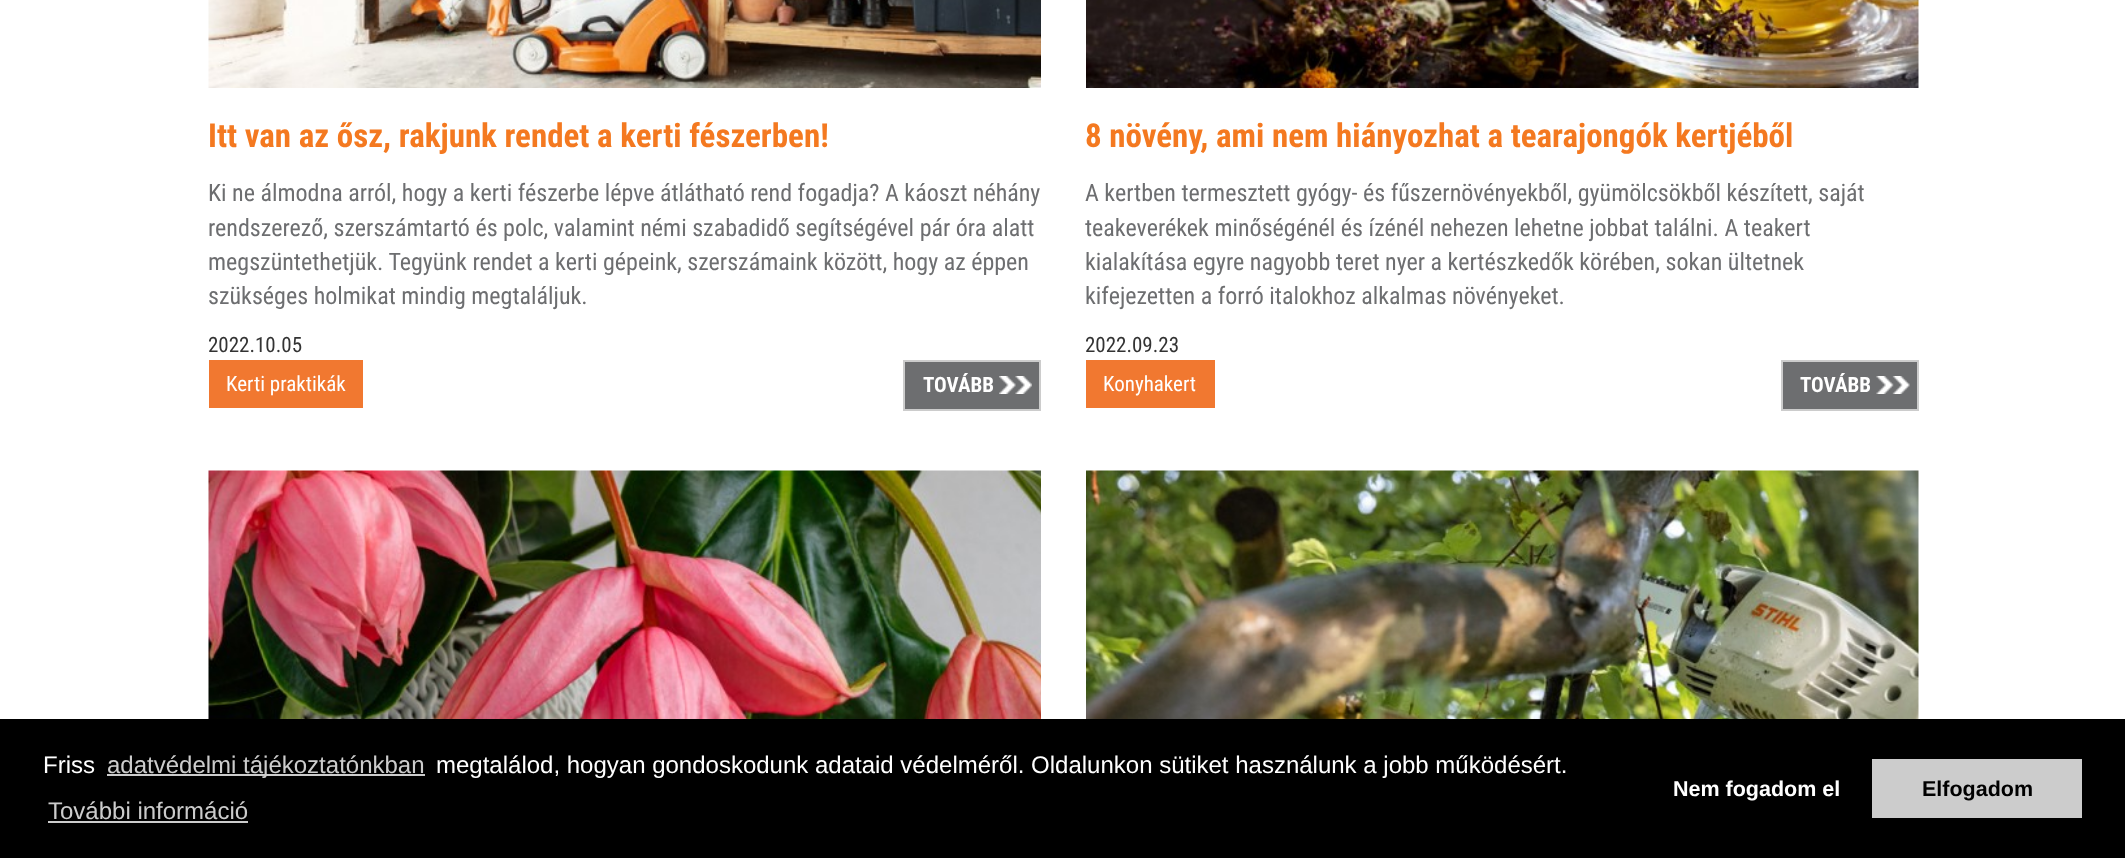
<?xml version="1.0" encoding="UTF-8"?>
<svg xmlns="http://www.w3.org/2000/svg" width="2125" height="858">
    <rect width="100%" height="100%" fill="#FFFFFF"/>
    <image x="208" y="0" width="833" height="88" href="img_01.png"/>
    <text x="208" y="147" font-family="Roboto Condensed" font-size="33" font-weight="700" fill="#F47920">Itt van az ősz, rakjunk rendet a kerti fészerben!</text>
    <text font-family="Roboto Condensed" font-size="24" fill="#6D6E70">
        <tspan x="208" y="201">Ki ne álmodna arról, hogy a kerti fészerbe lépve átlátható rend fogadja? A káoszt néhány</tspan>
        <tspan x="208" y="236">rendszerező, szerszámtartó és polc, valamint némi szabadidő segítségével pár óra alatt</tspan>
        <tspan x="208" y="270">megszüntethetjük. Tegyünk rendet a kerti gépeink, szerszámaink között, hogy az éppen</tspan>
        <tspan x="208" y="304">szükséges holmikat mindig megtaláljuk.</tspan>
    </text>
    <text x="208" y="352" font-family="Roboto Condensed" font-size="21" fill="#333333">2022.10.05</text>
    <rect x="209" y="360" width="154" height="48" fill="#F17830"/>
    <text x="226" y="391" font-family="Roboto Condensed" font-size="21" fill="#FFFFFF">Kerti praktikák</text>
    <rect x="905" y="362" width="134" height="47" fill="#6D6E70"/>
    <image x="999" y="376" width="33" height="18" href="img_02.png"/>
    <rect x="904" y="361" width="136" height="49" fill="none" stroke="#CCCCCC" stroke-width="2"/>
    <text x="923" y="392" font-family="Roboto Condensed" font-size="21" font-weight="700" fill="#FFFFFF">TOVÁBB</text>
    <image x="1086" y="0" width="833" height="88" href="img_03.png"/>
    <text x="1085" y="147" font-family="Roboto Condensed" font-size="33" font-weight="700" fill="#F47920">8 növény, ami nem hiányozhat a tearajongók kertjéből</text>
    <text font-family="Roboto Condensed" font-size="24" fill="#6D6E70">
        <tspan x="1085" y="201">A kertben termesztett gyógy- és fűszernövényekből, gyümölcsökből készített, saját</tspan>
        <tspan x="1085" y="236">teakeverékek minőségénél és ízénél nehezen lehetne jobbat találni. A teakert</tspan>
        <tspan x="1085" y="270">kialakítása egyre nagyobb teret nyer a kertészkedők körében, sokan ültetnek</tspan>
        <tspan x="1085" y="304">kifejezetten a forró italokhoz alkalmas növényeket.</tspan>
    </text>
    <text x="1085" y="352" font-family="Roboto Condensed" font-size="21" fill="#333333">2022.09.23</text>
    <rect x="1086" y="360" width="129" height="48" fill="#F17830"/>
    <text x="1103" y="391" font-family="Roboto Condensed" font-size="21" fill="#FFFFFF">Konyhakert</text>
    <rect x="1783" y="362" width="134" height="47" fill="#6D6E70"/>
    <image x="1876" y="376" width="34" height="18" href="img_04.png"/>
    <rect x="1782" y="361" width="136" height="49" fill="none" stroke="#CCCCCC" stroke-width="2"/>
    <text x="1800" y="392" font-family="Roboto Condensed" font-size="21" font-weight="700" fill="#FFFFFF">TOVÁBB</text>
    <image x="208" y="470" width="833" height="249" href="img_05.png"/>
    <image x="1086" y="470" width="833" height="249" href="img_06.png"/>
    <rect x="0" y="719" width="2125" height="139" fill="#000000"/>
    <text x="43" y="773" font-family="Liberation Sans" font-size="24" fill="#FFFFFF">Friss</text>
    <rect x="107" y="774" width="318" height="2" fill="#CCCCCC"/>
    <text x="107" y="773" font-family="Liberation Sans" font-size="24" fill="#CCCCCC">adatvédelmi tájékoztatónkban</text>
    <text x="436" y="773" font-family="Liberation Sans" font-size="24" fill="#FFFFFF">megtalálod, hogyan gondoskodunk adataid védelméről. Oldalunkon sütiket használunk a jobb működésért.</text>
    <text x="48" y="819" font-family="Liberation Sans" font-size="24" fill="#CCCCCC">További információ</text>
    <rect x="48" y="821" width="200" height="2" fill="#CCCCCC"/>
    <text x="1673" y="796" font-family="Liberation Sans" font-size="21.5" font-weight="700" fill="#FFFFFF">Nem fogadom el</text>
    <rect x="1872" y="759" width="210" height="59" fill="#CCCCCC"/>
    <text x="1922" y="796" font-family="Liberation Sans" font-size="21.5" font-weight="700" fill="#000000">Elfogadom</text>
</svg>
